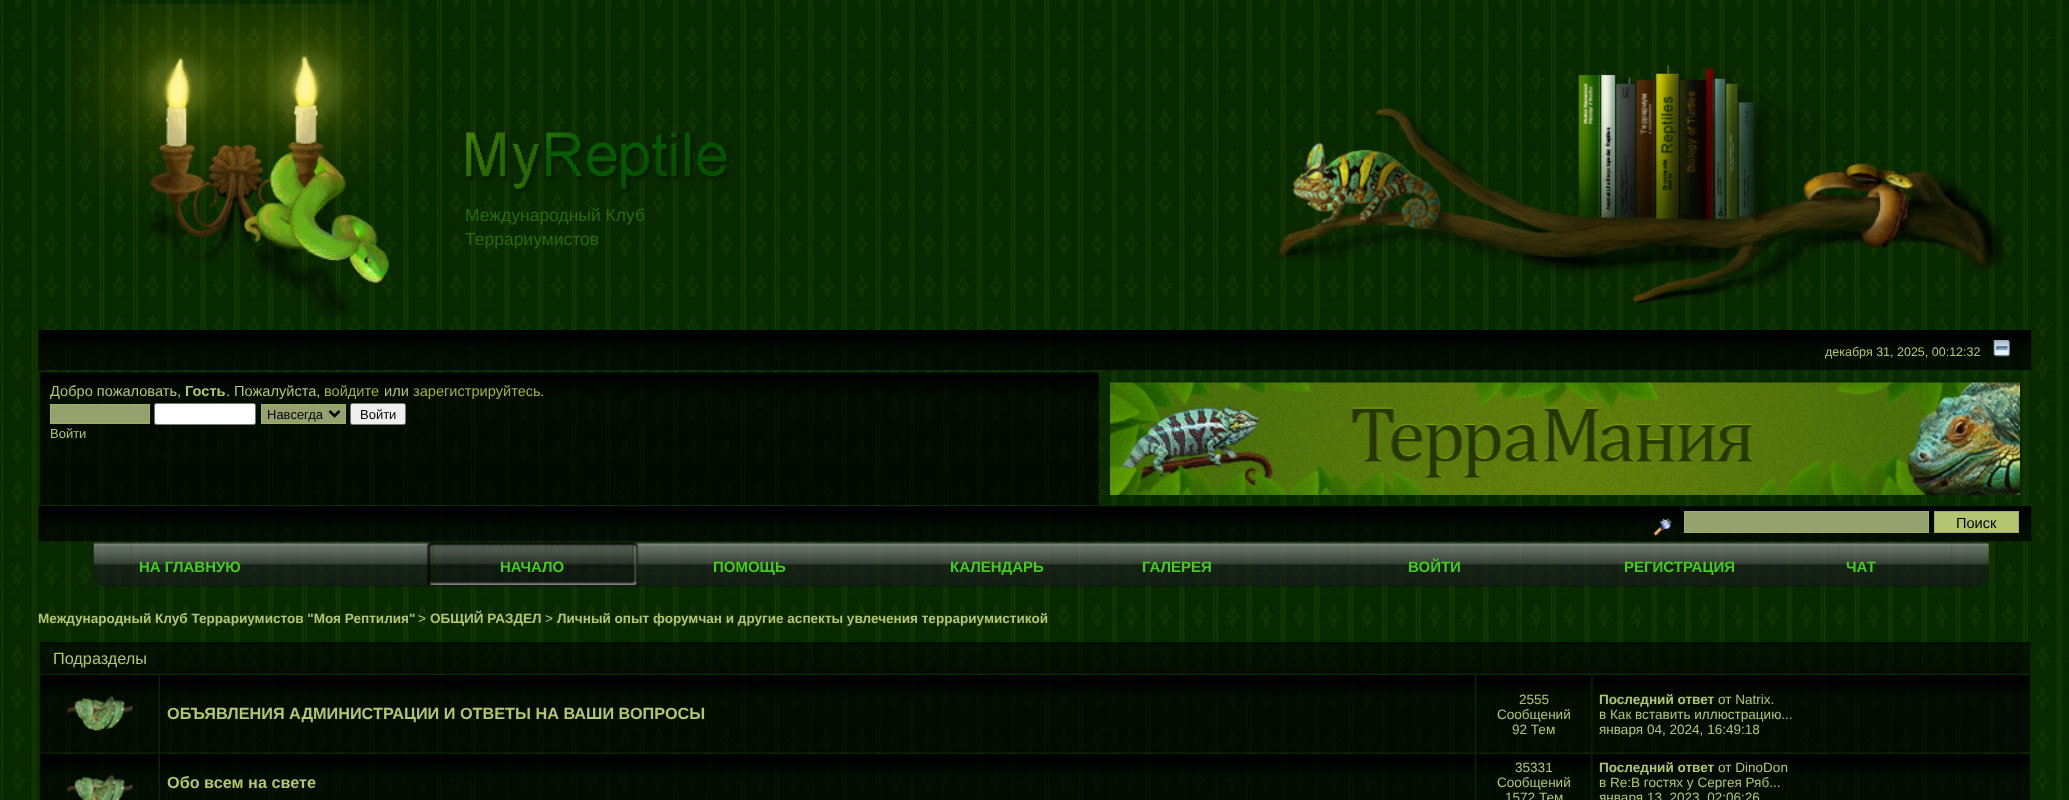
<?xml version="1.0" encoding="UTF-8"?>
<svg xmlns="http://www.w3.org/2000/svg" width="2069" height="800">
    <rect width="100%" height="100%" fill="#FFFFFF"/>
    <image x="0" y="0" width="2069" height="800" href="img_01.png"/>
    <image x="64" y="4" width="347" height="315" href="img_02.png"/>
    <image x="466" y="132" width="265" height="61" href="img_03.png"/>
    <text font-family="Liberation Sans" font-size="17.5" fill="#2A6901">
        <tspan x="465" y="221">Международный Клуб</tspan>
        <tspan x="465" y="245">Террариумистов</tspan>
    </text>
    <image x="1279" y="65" width="725" height="239" href="img_04.png"/>
    <image x="38" y="330" width="1994" height="40" href="img_05.png"/>
    <text x="1825" y="356" font-family="Liberation Sans" font-size="12.5" fill="#B3C571">декабря 31, 2025, 00:12:32</text>
    <image x="1993" y="340" width="17" height="17" href="img_06.png"/>
    <image x="40" y="372" width="1059" height="133" href="img_07.png"/>
    <text x="50" y="396" font-family="Liberation Sans" font-size="14.6" fill="#B3C571">Добро пожаловать,</text>
    <text x="185" y="396" font-family="Liberation Sans" font-size="14.6" font-weight="700" fill="#B3C571">Гость</text>
    <text x="226" y="396" font-family="Liberation Sans" font-size="14.6" fill="#B3C571">. Пожалуйста,</text>
    <text x="324" y="396" font-family="Liberation Sans" font-size="14.6" fill="#A3AF41">войдите</text>
    <text x="384" y="396" font-family="Liberation Sans" font-size="14.6" fill="#B3C571">или</text>
    <text x="413" y="396" font-family="Liberation Sans" font-size="14.6" fill="#A3AF41">зарегистрируйтесь</text>
    <text x="540" y="396" font-family="Liberation Sans" font-size="14.6" fill="#B3C571">.</text>
    <rect x="50.5" y="404.5" width="99" height="19" fill="#96A170" stroke="#A0B060"/>
    <rect x="154.5" y="403.5" width="101" height="21" rx="2" fill="#FFFFFF" stroke="#767676"/>
    <rect x="261.5" y="404.5" width="84" height="19" fill="#96A170" stroke="#A0B060"/>
    <path d="M 329.5 411 L 334.5 416 L 339.5 411" fill="none" stroke="#000000" stroke-width="2.5"/>
    <text x="267" y="419" font-family="Liberation Sans" font-size="13" fill="#000000">Навсегда</text>
    <rect x="350.5" y="403.5" width="55" height="21" rx="2" fill="#EFEFEF" stroke="#767676"/>
    <text x="360" y="419" font-family="Liberation Sans" font-size="13" fill="#000000">Войти</text>
    <text x="50" y="438" font-family="Liberation Sans" font-size="13" fill="#B3C571">Войти</text>
    <image x="1110" y="382" width="910" height="113" href="img_08.png"/>
    <image x="38" y="506" width="1994" height="36" href="img_09.png"/>
    <image x="1653" y="518" width="19" height="19" href="img_10.png"/>
    <rect x="1684.5" y="511.5" width="244" height="21" fill="#96A170" stroke="#A0B060"/>
    <rect x="1934.5" y="511.5" width="84" height="21" fill="#B3C571" stroke="#A0B060"/>
    <text x="1956" y="528" font-family="Liberation Sans" font-size="14.6" fill="#000000">Поиск</text>
    <image x="93" y="542" width="39" height="45" href="img_11.png"/>
    <image x="131" y="542" width="296" height="45" href="img_12.png"/>
    <text x="139" y="572" font-family="Liberation Sans" font-size="15" font-weight="700" fill="#41CF15">НА ГЛАВНУЮ</text>
    <image x="426" y="542" width="7" height="45" href="img_13.png"/>
    <image x="432" y="542" width="201" height="45" href="img_14.png"/>
    <text x="500" y="572" font-family="Liberation Sans" font-size="15" font-weight="700" fill="#41CF15">НАЧАЛО</text>
    <image x="632" y="542" width="7" height="45" href="img_15.png"/>
    <image x="638" y="542" width="222" height="45" href="img_16.png"/>
    <text x="713" y="572" font-family="Liberation Sans" font-size="15" font-weight="700" fill="#41CF15">ПОМОЩЬ</text>
    <image x="860" y="542" width="275" height="45" href="img_17.png"/>
    <text x="950" y="572" font-family="Liberation Sans" font-size="15" font-weight="700" fill="#41CF15">КАЛЕНДАРЬ</text>
    <image x="1135" y="542" width="214" height="45" href="img_18.png"/>
    <text x="1142" y="572" font-family="Liberation Sans" font-size="15" font-weight="700" fill="#41CF15">ГАЛЕРЕЯ</text>
    <image x="1348" y="542" width="172" height="45" href="img_19.png"/>
    <text x="1408" y="572" font-family="Liberation Sans" font-size="15" font-weight="700" fill="#41CF15">ВОЙТИ</text>
    <image x="1520" y="542" width="319" height="45" href="img_20.png"/>
    <text x="1624" y="572" font-family="Liberation Sans" font-size="15" font-weight="700" fill="#41CF15">РЕГИСТРАЦИЯ</text>
    <image x="1838" y="542" width="114" height="45" href="img_21.png"/>
    <text x="1846" y="572" font-family="Liberation Sans" font-size="15" font-weight="700" fill="#41CF15">ЧАТ</text>
    <image x="1951" y="542" width="38" height="45" href="img_22.png"/>
    <text x="38" y="623" font-family="Liberation Sans" font-size="13.55" font-weight="700" fill="#B3C571">Международный Клуб Террариумистов "Моя Рептилия"</text>
    <text x="418" y="623" font-family="Liberation Sans" font-size="13.55" fill="#B3C571">&gt;</text>
    <text x="430" y="623" font-family="Liberation Sans" font-size="13.55" font-weight="700" fill="#B3C571">ОБЩИЙ РАЗДЕЛ</text>
    <text x="545" y="623" font-family="Liberation Sans" font-size="13.55" fill="#B3C571">&gt;</text>
    <text x="557" y="623" font-family="Liberation Sans" font-size="13.55" font-weight="700" fill="#B3C571">Личный опыт форумчан и другие аспекты увлечения террариумистикой</text>
    <image x="40" y="642" width="1990" height="32" href="img_23.png"/>
    <text x="53" y="664" font-family="Liberation Sans" font-size="16.25" fill="#B3C571">Подразделы</text>
    <image x="40" y="675" width="119" height="78" href="img_24.png"/>
    <image x="67" y="695" width="66" height="37" href="img_25.png"/>
    <image x="160" y="675" width="1315" height="78" href="img_26.png"/>
    <text x="167" y="719" font-family="Liberation Sans" font-size="16.25" font-weight="700" fill="#B3C571">ОБЪЯВЛЕНИЯ АДМИНИСТРАЦИИ И ОТВЕТЫ НА ВАШИ ВОПРОСЫ</text>
    <image x="1476" y="675" width="116" height="78" href="img_27.png"/>
    <text x="1519" y="704" font-family="Liberation Sans" font-size="13.55" fill="#B3C571">2555</text>
    <text x="1497" y="719" font-family="Liberation Sans" font-size="13.55" fill="#B3C571">Сообщений</text>
    <text x="1512" y="734" font-family="Liberation Sans" font-size="13.55" fill="#B3C571">92 Тем</text>
    <image x="1592" y="675" width="438" height="78" href="img_28.png"/>
    <text x="1599" y="704" font-family="Liberation Sans" font-size="13.55" font-weight="700" fill="#B3C571">Последний ответ</text>
    <text x="1718" y="704" font-family="Liberation Sans" font-size="13.55" fill="#B3C571">от Natrix.</text>
    <text font-family="Liberation Sans" font-size="13.55" fill="#B3C571">
        <tspan x="1599" y="719">в Как вставить иллюстрацию...</tspan>
        <tspan x="1599" y="734">января 04, 2024, 16:49:18</tspan>
    </text>
    <image x="40" y="753" width="119" height="47" href="img_29.png"/>
    <image x="67" y="774" width="66" height="26" href="img_30.png"/>
    <image x="160" y="753" width="1315" height="47" href="img_31.png"/>
    <text x="167" y="788" font-family="Liberation Sans" font-size="16.25" font-weight="700" fill="#B3C571">Обо всем на свете</text>
    <image x="1476" y="753" width="116" height="47" href="img_32.png"/>
    <text x="1515" y="772" font-family="Liberation Sans" font-size="13.55" fill="#B3C571">35331</text>
    <text x="1497" y="787" font-family="Liberation Sans" font-size="13.55" fill="#B3C571">Сообщений</text>
    <text x="1505" y="802" font-family="Liberation Sans" font-size="13.55" fill="#B3C571">1572 Тем</text>
    <image x="1592" y="753" width="438" height="47" href="img_33.png"/>
    <text x="1599" y="772" font-family="Liberation Sans" font-size="13.55" font-weight="700" fill="#B3C571">Последний ответ</text>
    <text x="1718" y="772" font-family="Liberation Sans" font-size="13.55" fill="#B3C571">от DinoDon</text>
    <text font-family="Liberation Sans" font-size="13.55" fill="#B3C571">
        <tspan x="1599" y="787">в Re:В гостях у Сергея Ряб...</tspan>
        <tspan x="1599" y="802">января 13, 2023, 02:06:26</tspan>
    </text>
</svg>
